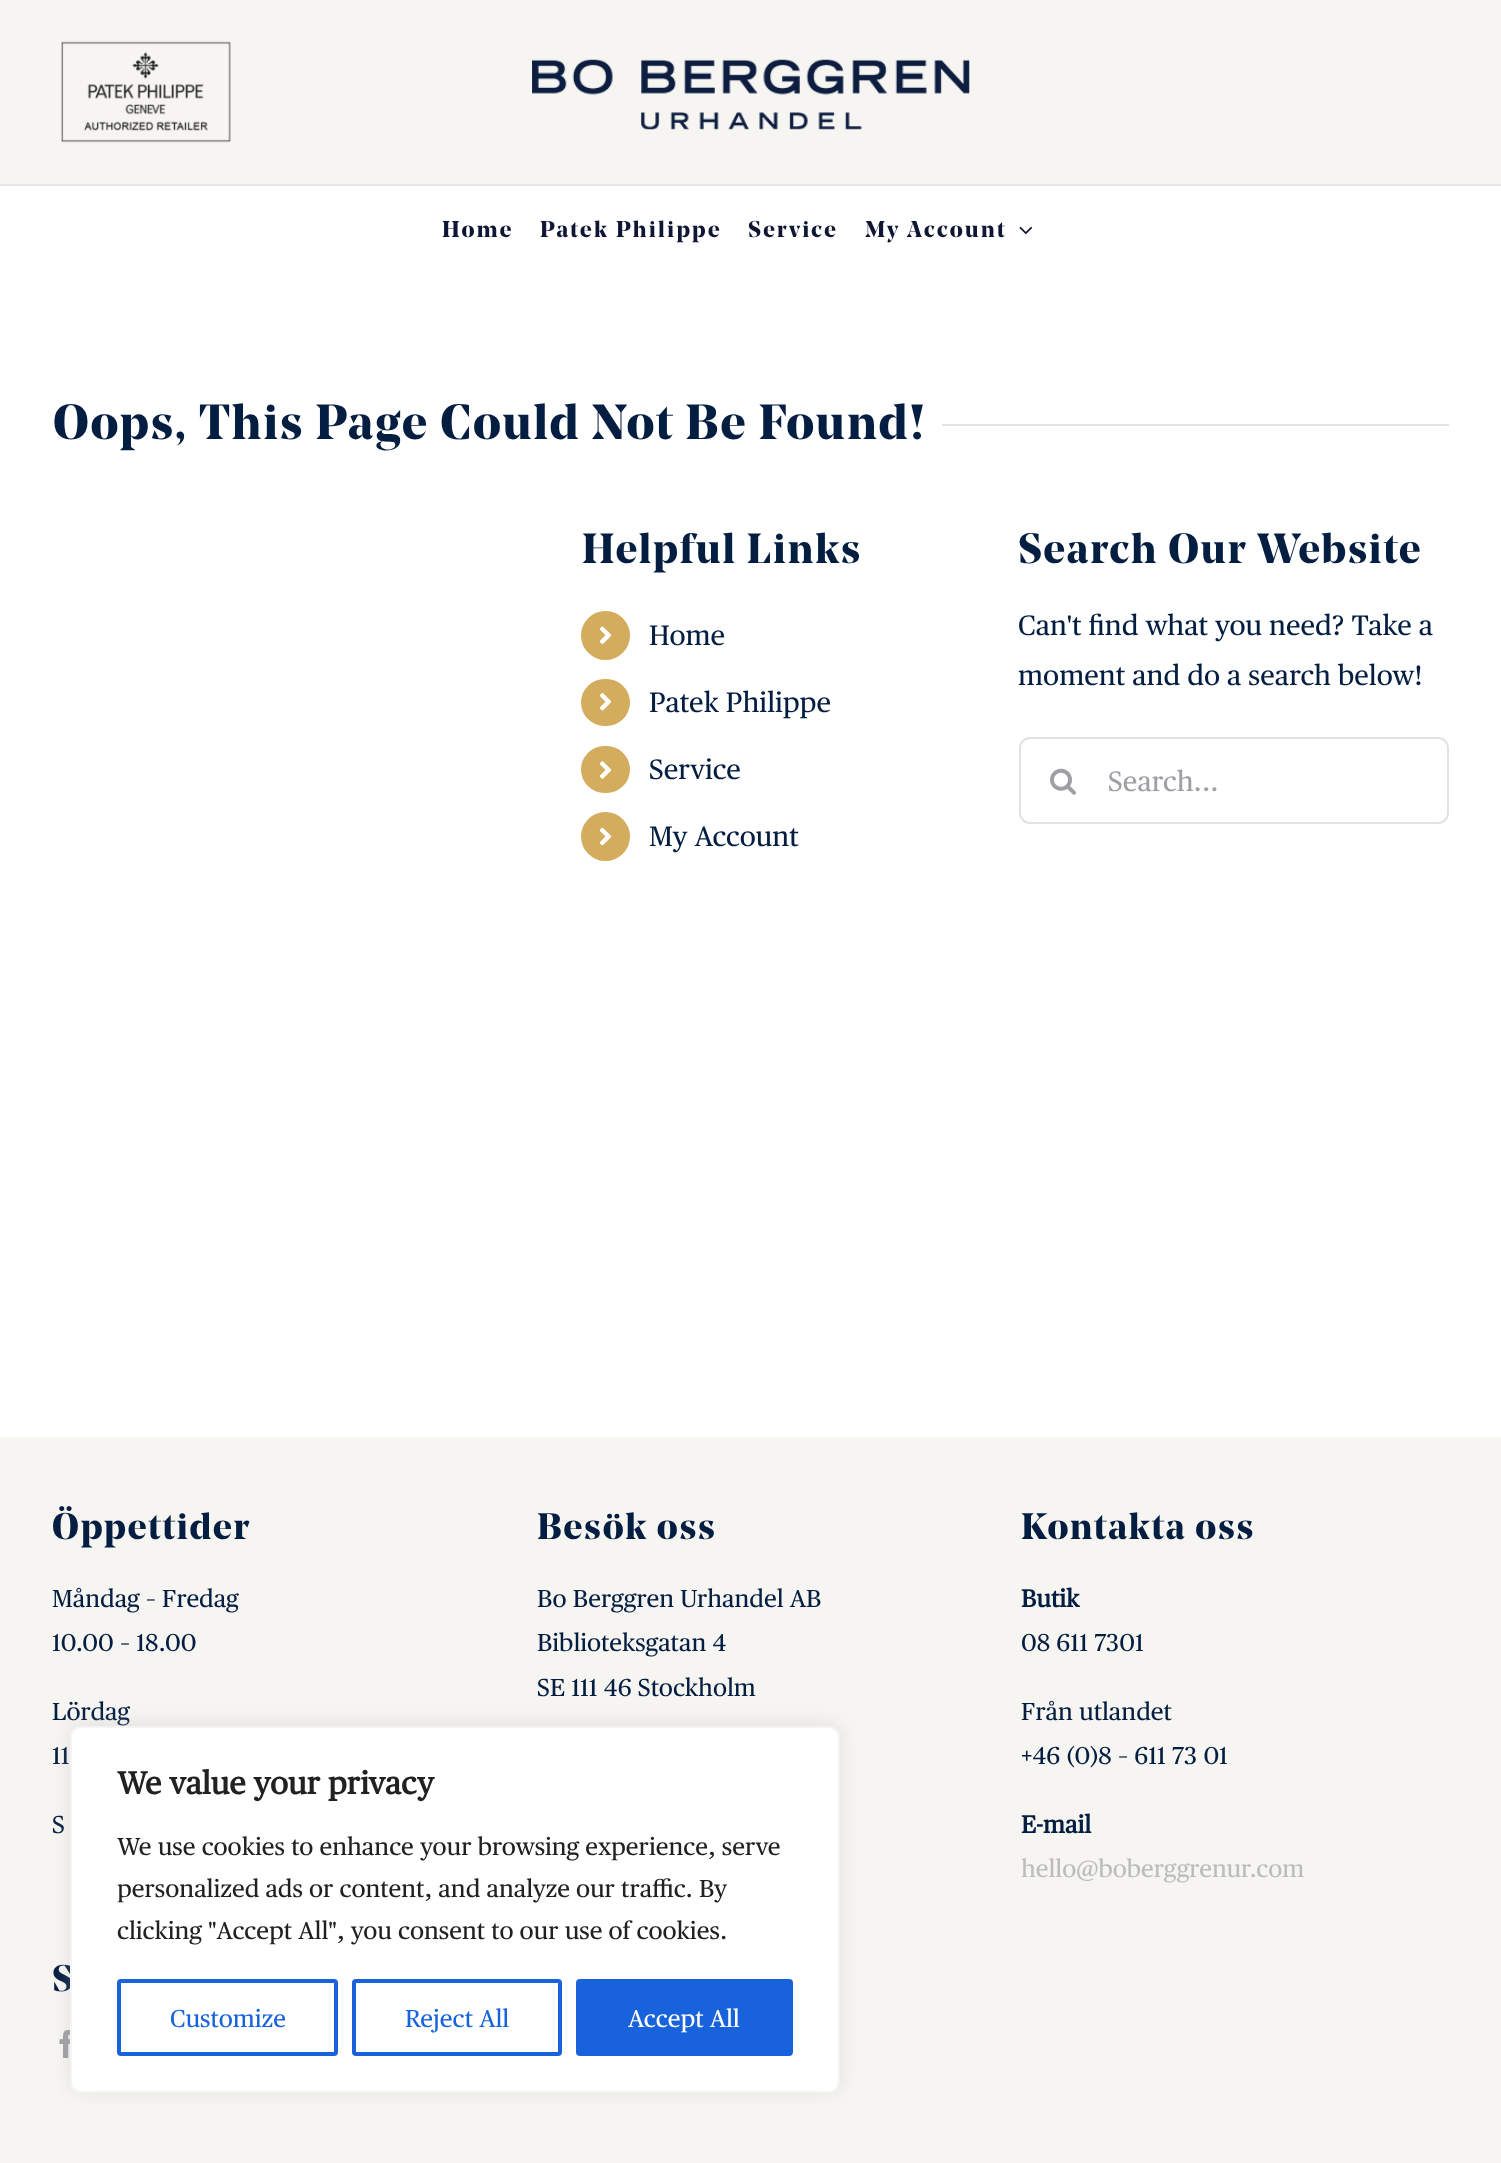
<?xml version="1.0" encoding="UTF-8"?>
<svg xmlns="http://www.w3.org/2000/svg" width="1501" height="2163">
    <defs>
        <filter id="blur1" x="-50%" y="-200%" width="200%" height="500%"><feGaussianBlur stdDeviation="9"/></filter>
    </defs>
    <rect width="100%" height="100%" fill="#FFFFFF"/>
    <rect x="0" y="0" width="1501" height="184" fill="#F6F5F2"/>
    <image x="61" y="41" width="170" height="102" href="img_01.png"/>
    <image x="532" y="59" width="438" height="71" href="img_02.png"/>
    <rect x="0" y="184" width="1501" height="2" fill="#E5E5E5"/>
    <text x="442" y="237" font-family="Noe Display" font-size="22.75" font-weight="700" letter-spacing="2.25" fill="#0F1634">Home</text>
    <text x="540" y="237" font-family="Noe Display" font-size="22.75" font-weight="700" letter-spacing="2.25" fill="#0F1634">Patek Philippe</text>
    <text x="748" y="237" font-family="Noe Display" font-size="22.75" font-weight="700" letter-spacing="2.25" fill="#0F1634">Service</text>
    <text x="865" y="237" font-family="Noe Display" font-size="22.75" font-weight="700" letter-spacing="2.25" fill="#0F1634">My Account</text>
    <image x="1019" y="226" width="14" height="9" href="img_03.png"/>
    <text x="53" y="439" font-family="Noe Display" font-size="49" font-weight="700" letter-spacing="1.75" fill="#041E42">Oops, This Page Could Not Be Found!</text>
    <rect x="942" y="424" width="507" height="2" fill="#E2E2E2"/>
    <text x="582" y="563" font-family="Noe Display" font-size="42" font-weight="700" letter-spacing="1.75" fill="#041E42">Helpful Links</text>
    <circle cx="605.5" cy="635.5" r="24.5" fill="#D3AC5D"/>
    <image x="599" y="626" width="13" height="18" href="img_04.png"/>
    <text x="649" y="645" font-family="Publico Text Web" font-size="28" fill="#041E42">Home</text>
    <rect x="581" y="679" width="49" height="47" rx="23.5" fill="#D3AC5D"/>
    <image x="599" y="693" width="13" height="18" href="img_05.png"/>
    <text x="649" y="712" font-family="Publico Text Web" font-size="28" fill="#041E42">Patek Philippe</text>
    <rect x="581" y="746" width="49" height="47" rx="23.5" fill="#D3AC5D"/>
    <image x="599" y="761" width="13" height="18" href="img_06.png"/>
    <text x="649" y="779" font-family="Publico Text Web" font-size="28" fill="#041E42">Service</text>
    <circle cx="605.5" cy="836.5" r="24.5" fill="#D3AC5D"/>
    <image x="599" y="827" width="13" height="19" href="img_07.png"/>
    <text x="649" y="846" font-family="Publico Text Web" font-size="28" fill="#041E42">My Account</text>
    <text x="1018" y="563" font-family="Noe Display" font-size="42" font-weight="700" letter-spacing="1.75" fill="#041E42">Search Our Website</text>
    <text font-family="Publico Text Web" font-size="28" fill="#041E42">
        <tspan x="1018" y="635">Can't find what you need? Take a</tspan>
        <tspan x="1018" y="685">moment and do a search below!</tspan>
    </text>
    <rect x="1020" y="738" width="428" height="85" rx="10" fill="none" stroke="#E2E2E2" stroke-width="2"/>
    <image x="1050" y="768" width="26" height="27" href="img_08.png"/>
    <text x="1108" y="791" font-family="Publico Text Web" font-size="28" fill="#9EA0A4">Search...</text>
    <rect x="0" y="1437" width="1501" height="726" fill="#F6F5F2"/>
    <text x="52" y="1539" font-family="Noe Display" font-size="36.75" font-weight="700" letter-spacing="1.75" fill="#041E42">Öppettider</text>
    <text font-family="Publico Text Web" font-size="24.5" fill="#041E42">
        <tspan x="52" y="1607">Måndag – Fredag</tspan>
        <tspan x="52" y="1651">10.00 – 18.00</tspan>
    </text>
    <text font-family="Publico Text Web" font-size="24.5" fill="#041E42">
        <tspan x="52" y="1720">Lördag</tspan>
        <tspan x="52" y="1764">11</tspan>
    </text>
    <text x="52" y="1833" font-family="Publico Text Web" font-size="24.5" fill="#041E42">S</text>
    <text x="52" y="1991" font-family="Noe Display" font-size="36.75" font-weight="700" letter-spacing="1.75" fill="#041E42">S</text>
    <image x="59" y="2030" width="11" height="28" href="img_09.png"/>
    <text x="537" y="1539" font-family="Noe Display" font-size="36.75" font-weight="700" letter-spacing="1.75" fill="#041E42">Besök oss</text>
    <text font-family="Publico Text Web" font-size="24.5" fill="#041E42">
        <tspan x="537" y="1607">Bo Berggren Urhandel AB</tspan>
        <tspan x="537" y="1651">Biblioteksgatan 4</tspan>
        <tspan x="537" y="1696">SE 111 46 Stockholm</tspan>
    </text>
    <text x="1021" y="1539" font-family="Noe Display" font-size="36.75" font-weight="700" letter-spacing="1.75" fill="#041E42">Kontakta oss</text>
    <text x="1021" y="1607" font-family="Publico Text Web" font-size="24.5" font-weight="700" fill="#041E42">Butik</text>
    <text x="1021" y="1651" font-family="Publico Text Web" font-size="24.5" fill="#041E42">08 611 7301</text>
    <text font-family="Publico Text Web" font-size="24.5" fill="#041E42">
        <tspan x="1021" y="1720">Från utlandet</tspan>
        <tspan x="1021" y="1764">+46 (0)8 – 611 73 01</tspan>
    </text>
    <text x="1021" y="1833" font-family="Publico Text Web" font-size="24.5" font-weight="700" fill="#041E42">E-mail</text>
    <text x="1021" y="1877" font-family="Publico Text Web" font-size="24.5" fill="#BCBCBC">hello@boberggrenur.com</text>
    <rect x="70" y="1724" width="770" height="367" rx="11" fill="#ACABAB" fill-opacity="0.3" filter="url(#blur1)"/>
    <rect x="71" y="1727" width="768" height="365" rx="10" fill="#FFFFFF" stroke="#F4F4F4" stroke-width="2"/>
    <text x="117" y="1794" font-family="Publico Text Web" font-size="31.5" font-weight="700" fill="#212121">We value your privacy</text>
    <text font-family="Publico Text Web" font-size="24.5" fill="#212121">
        <tspan x="117" y="1855">We use cookies to enhance your browsing experience, serve</tspan>
        <tspan x="117" y="1897">personalized ads or content, and analyze our traffic. By</tspan>
        <tspan x="117" y="1939">clicking "Accept All", you consent to our use of cookies.</tspan>
    </text>
    <rect x="119" y="1981" width="217" height="73" rx="2" fill="none" stroke="#1863DC" stroke-width="4"/>
    <text x="170" y="2027" font-family="Publico Text Web" font-size="24.5" fill="#1863DC">Customize</text>
    <rect x="354" y="1981" width="206" height="73" rx="2" fill="none" stroke="#1863DC" stroke-width="4"/>
    <text x="405" y="2027" font-family="Publico Text Web" font-size="24.5" fill="#1863DC">Reject All</text>
    <rect x="578" y="1981" width="213" height="73" rx="2" fill="#1863DC" stroke="#1863DC" stroke-width="4"/>
    <text x="628" y="2027" font-family="Publico Text Web" font-size="24.5" fill="#FFFFFF">Accept All</text>
</svg>
